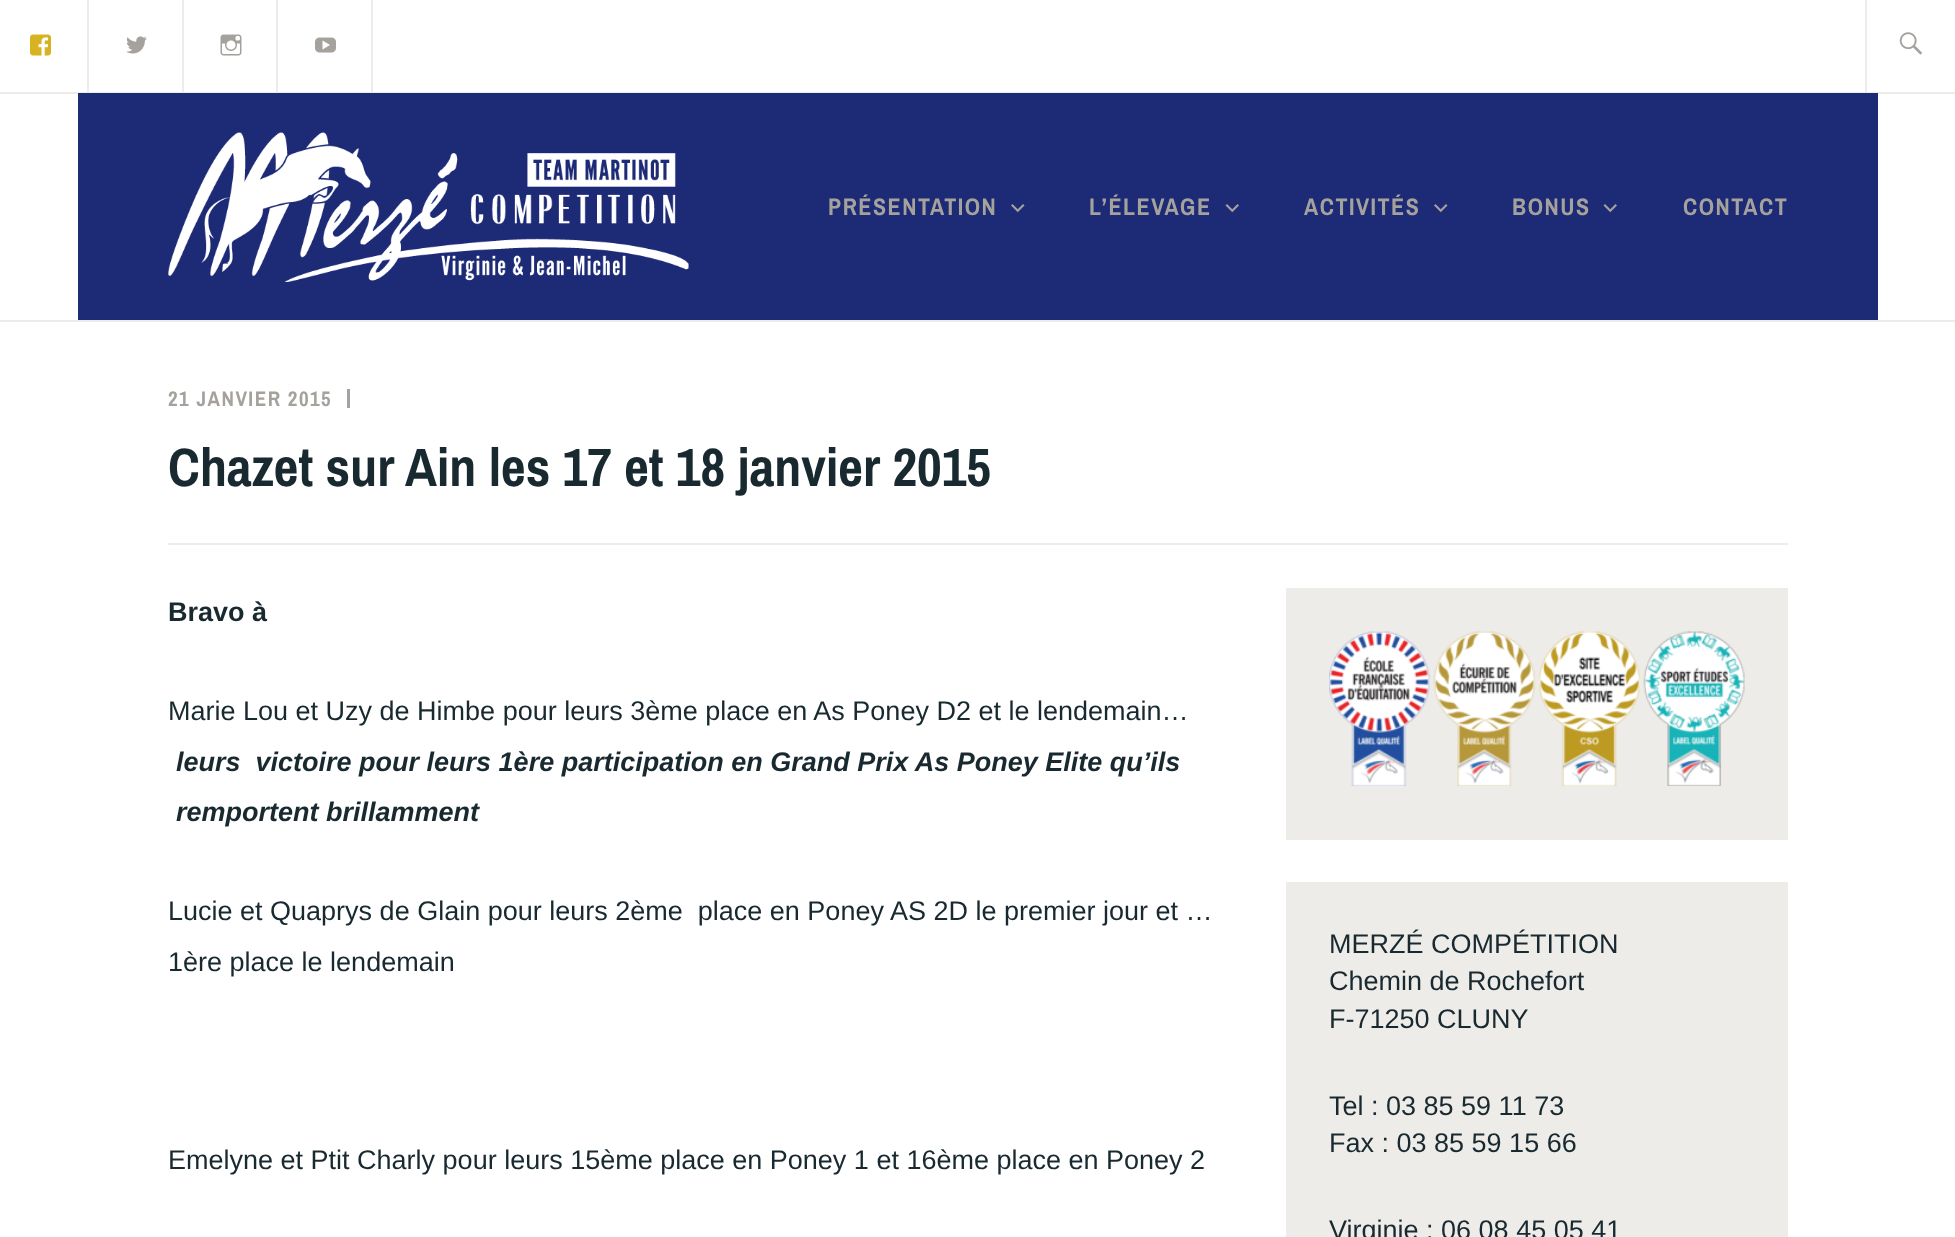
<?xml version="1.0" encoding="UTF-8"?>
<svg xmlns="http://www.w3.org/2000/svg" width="1955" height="1237">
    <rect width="100%" height="100%" fill="#FFFFFF"/>
    <rect x="0" y="320" width="1955" height="2" fill="#EEECE8"/>
    <rect x="0" y="92" width="1955" height="2" fill="#EEECE8"/>
    <rect x="87" y="0" width="2" height="92" fill="#EEECE8"/>
    <image x="30" y="34" width="21" height="22" href="img_01.png"/>
    <rect x="182" y="0" width="2" height="92" fill="#EEECE8"/>
    <image x="126" y="36" width="21" height="18" href="img_02.png"/>
    <rect x="276" y="0" width="2" height="92" fill="#EEECE8"/>
    <image x="220" y="34" width="22" height="22" href="img_03.png"/>
    <rect x="371" y="0" width="2" height="92" fill="#EEECE8"/>
    <image x="315" y="37" width="21" height="16" href="img_04.png"/>
    <rect x="1865" y="0" width="2" height="92" fill="#EEECE8"/>
    <image x="1899" y="32" width="24" height="23" href="img_05.png"/>
    <rect x="78" y="93" width="1800" height="227" fill="#1D2A76"/>
    <image x="168" y="132" width="521" height="150" href="img_06.png"/>
    <text x="828" y="215" font-family="Archivo Narrow" font-size="24" font-weight="700" letter-spacing="1.5" fill="#A5A29D">PRÉSENTATION</text>
    <image x="1011" y="204" width="14" height="9" href="img_07.png"/>
    <text x="1089" y="215" font-family="Archivo Narrow" font-size="24" font-weight="700" letter-spacing="1.5" fill="#A5A29D">L’ÉLEVAGE</text>
    <image x="1225" y="204" width="14" height="9" href="img_08.png"/>
    <text x="1304" y="215" font-family="Archivo Narrow" font-size="24" font-weight="700" letter-spacing="1.5" fill="#A5A29D">ACTIVITÉS</text>
    <image x="1434" y="204" width="14" height="9" href="img_07.png"/>
    <text x="1512" y="215" font-family="Archivo Narrow" font-size="24" font-weight="700" letter-spacing="1.5" fill="#A5A29D">BONUS</text>
    <image x="1603" y="204" width="14" height="9" href="img_08.png"/>
    <text x="1683" y="215" font-family="Archivo Narrow" font-size="24" font-weight="700" letter-spacing="1.5" fill="#A5A29D">CONTACT</text>
    <text x="168" y="406" font-family="Archivo Narrow" font-size="21" font-weight="700" letter-spacing="1.5" fill="#A5A29D">21 JANVIER 2015</text>
    <rect x="347" y="389" width="3" height="19" fill="#A5A29D"/>
    <rect x="168" y="543" width="1620" height="2" fill="#EEECE8"/>
    <text x="168" y="486" font-family="Archivo Narrow" font-size="54" font-weight="700" fill="#192930">Chazet sur Ain les 17 et 18 janvier 2015</text>
    <text x="168" y="621" font-family="Liberation Sans" font-size="27" font-weight="700" fill="#192930">Bravo à</text>
    <text x="168" y="720" font-family="Liberation Sans" font-size="27" fill="#192930">Marie Lou et Uzy de Himbe pour leurs 3ème place en As Poney D2 et le lendemain…</text>
    <text font-family="Liberation Sans" font-size="27" font-weight="700" font-style="italic" fill="#192930" xml:space="preserve"><tspan x="176" y="771">leurs  victoire pour leurs 1ère participation en Grand Prix As Poney Elite qu’ils</tspan><tspan x="176" y="821">remportent brillamment</tspan></text>
    <text font-family="Liberation Sans" font-size="27" fill="#192930" xml:space="preserve"><tspan x="168" y="920">Lucie et Quaprys de Glain pour leurs 2ème  place en Poney AS 2D le premier jour et …</tspan><tspan x="168" y="971">1ère place le lendemain</tspan></text>
    <text x="168" y="1169" font-family="Liberation Sans" font-size="27" fill="#192930">Emelyne et Ptit Charly pour leurs 15ème place en Poney 1 et 16ème place en Poney 2</text>
    <rect x="1286" y="588" width="502" height="252" fill="#EEECE8"/>
    <image x="1329" y="631" width="416" height="155" href="img_09.png"/>
    <rect x="1286" y="882" width="502" height="355" fill="#EEECE8"/>
    <text font-family="Liberation Sans" font-size="27" fill="#192930">
        <tspan x="1329" y="953">MERZÉ COMPÉTITION</tspan>
        <tspan x="1329" y="990">Chemin de Rochefort</tspan>
        <tspan x="1329" y="1028">F-71250 CLUNY</tspan>
    </text>
    <text font-family="Liberation Sans" font-size="27" fill="#192930">
        <tspan x="1329" y="1115">Tel : 03 85 59 11 73</tspan>
        <tspan x="1329" y="1152">Fax : 03 85 59 15 66</tspan>
    </text>
    <text x="1329" y="1239" font-family="Liberation Sans" font-size="27" fill="#192930">Virginie : 06 08 45 05 41</text>
</svg>
